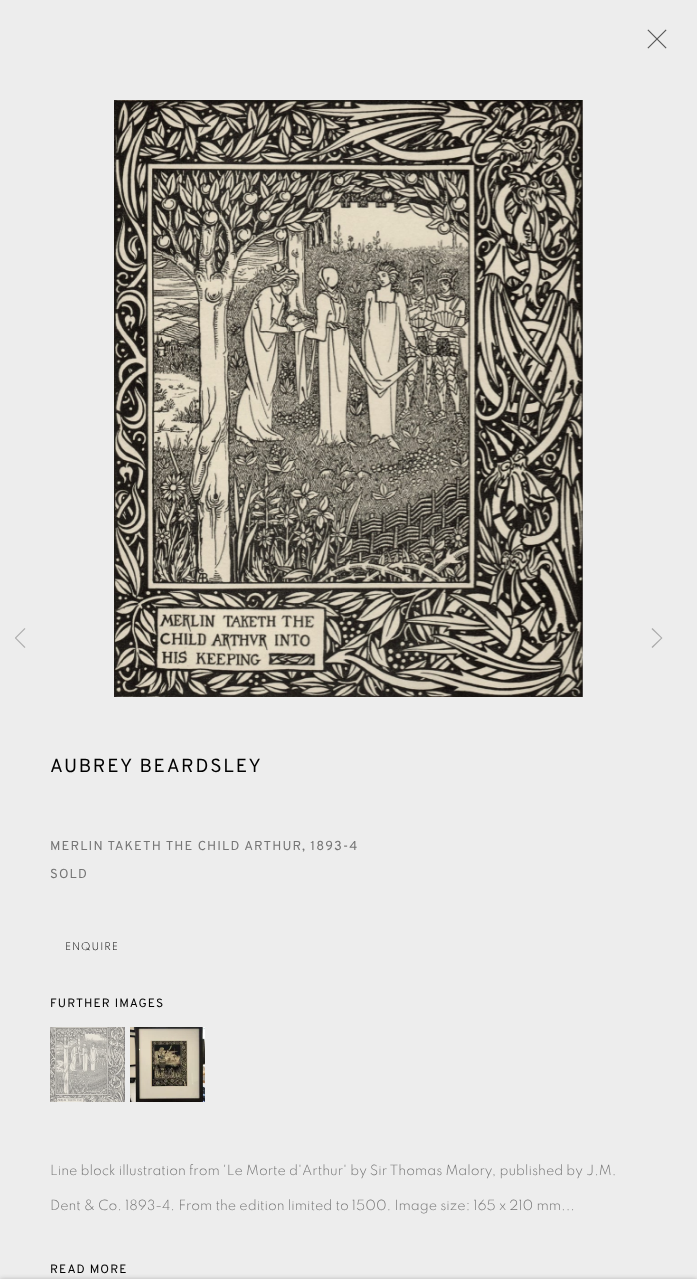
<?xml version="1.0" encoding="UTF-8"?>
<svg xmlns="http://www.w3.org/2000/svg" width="697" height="1279">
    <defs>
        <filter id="blur1" x="-50%" y="-200%" width="200%" height="500%"><feGaussianBlur stdDeviation="2.5"/></filter>
    </defs>
    <rect width="100%" height="100%" fill="#EDEDED"/>
    <image x="647" y="29" width="20" height="20" href="img_01.png"/>
    <image x="15" y="628" width="11" height="20" href="img_02.png"/>
    <path d="M 662.5 638 L 652.5 628 L 651.5 629 L 661 638 L 651.5 647 L 652.5 648 Z" fill="#ACACAC"/>
    <image x="114" y="100" width="469" height="597" href="img_03.png"/>
    <text x="50" y="772" font-family="Overpass" font-size="19" letter-spacing="1.75" fill="#010101">AUBREY BEARDSLEY</text>
    <text x="50" y="850" font-family="Overpass" font-size="13" letter-spacing="1.15" fill="#757575">MERLIN TAKETH THE CHILD ARTHUR, 1893-4</text>
    <text x="50" y="878" font-family="Overpass" font-size="13" letter-spacing="1.15" fill="#757575">SOLD</text>
    <text x="65" y="950" font-family="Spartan" font-size="11" font-weight="300" letter-spacing="1" fill="#010101">ENQUIRE</text>
    <text x="50" y="1007" font-family="Overpass" font-size="12" letter-spacing="1.1" fill="#010101">FURTHER IMAGES</text>
    <image x="50" y="1027" width="75" height="75" href="img_04.png"/>
    <image x="130" y="1027" width="75" height="75" href="img_05.png"/>
    <text x="50" y="1175" font-family="Spartan" font-size="14.5" font-weight="300" fill="#757575">Line block illustration from 'Le Morte d'Arthur' by Sir Thomas Malory, published by J.M.</text>
    <text x="50" y="1210" font-family="Spartan" font-size="14.5" font-weight="300" fill="#757575">Dent &amp; Co. 1893-4. From the edition limited to 1500. Image size: 165 x 210 mm...</text>
    <text x="50" y="1273" font-family="Overpass" font-size="12" letter-spacing="1.1" fill="#010101">READ MORE</text>
    <rect x="0" y="1279" width="697" height="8" fill="#000000" fill-opacity="0.23" filter="url(#blur1)"/>
</svg>
